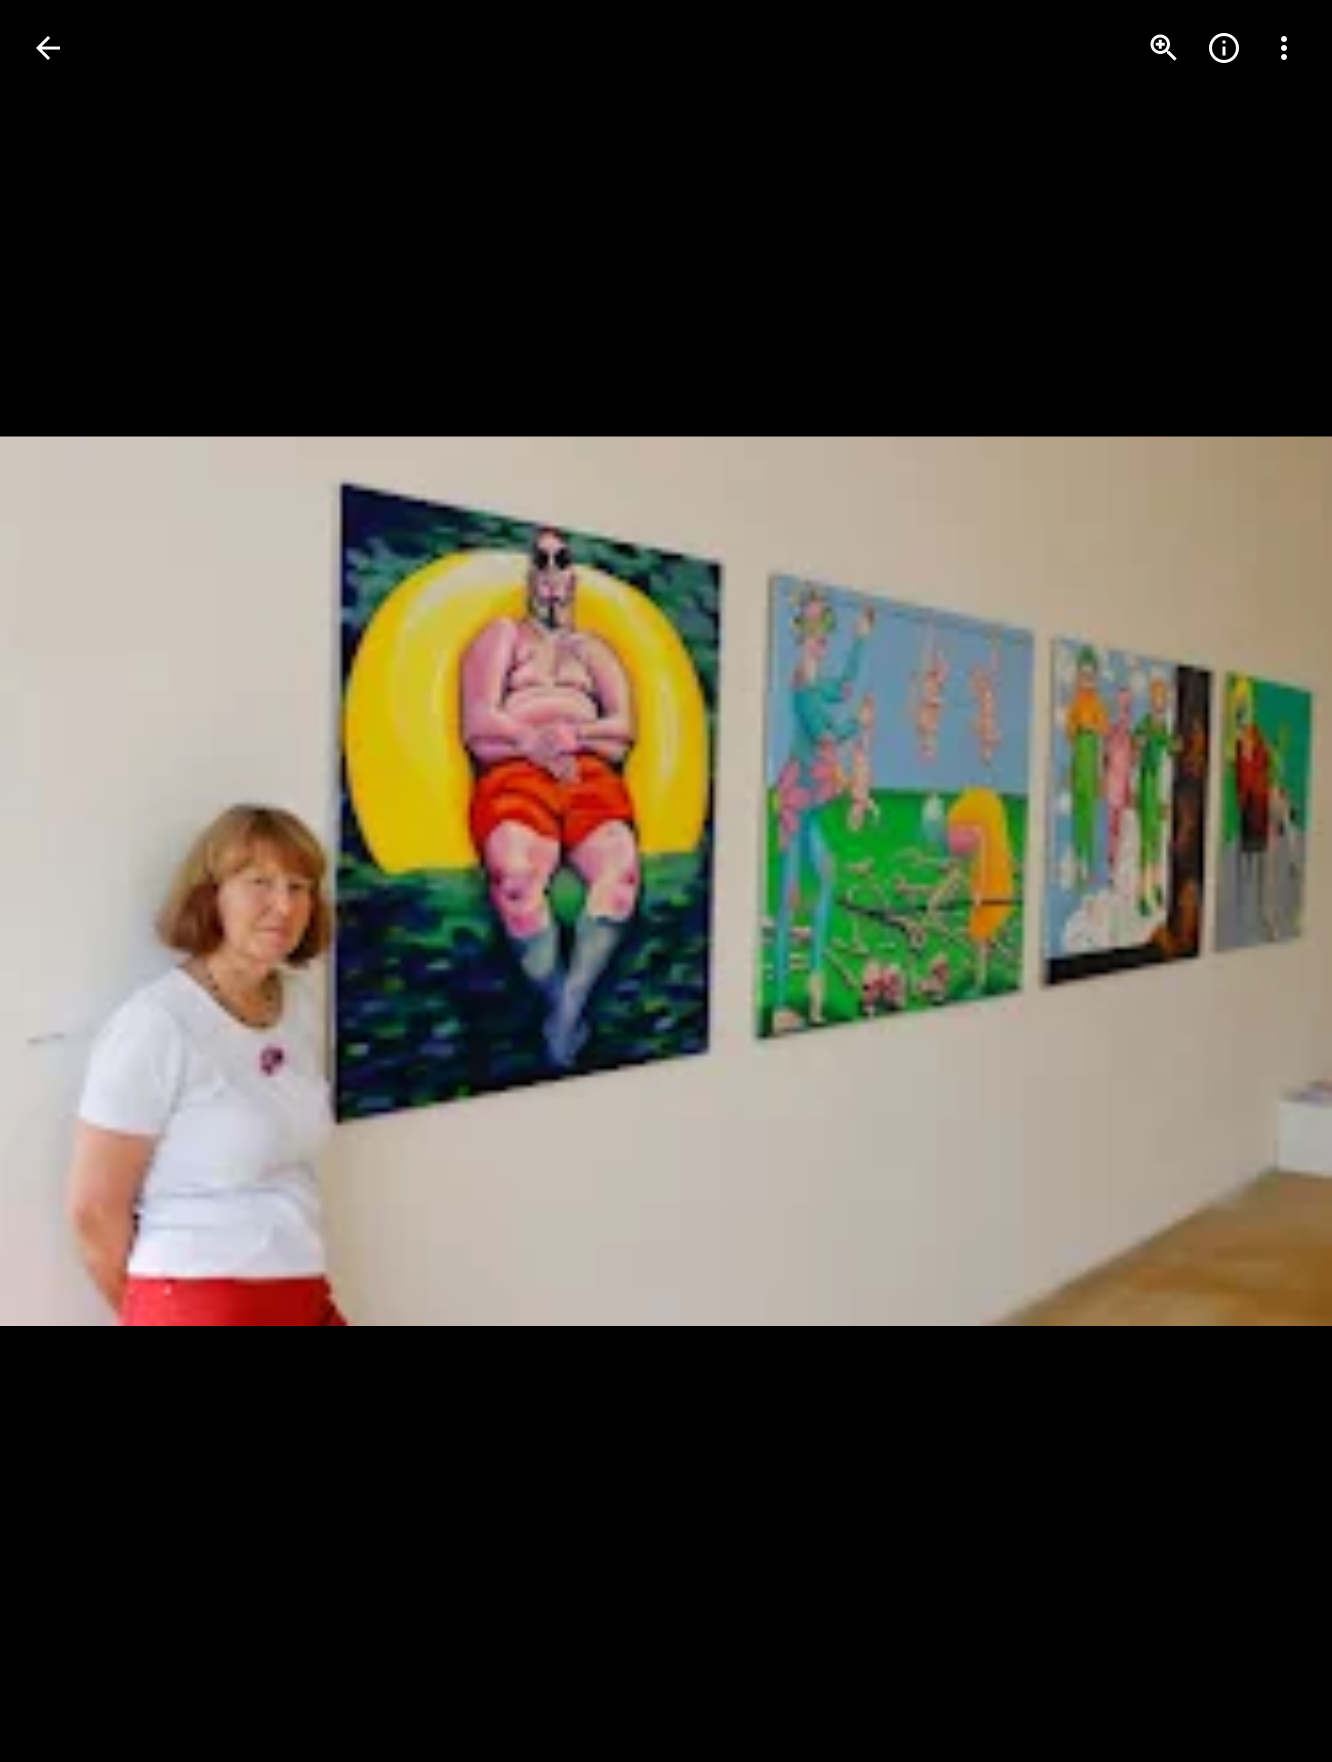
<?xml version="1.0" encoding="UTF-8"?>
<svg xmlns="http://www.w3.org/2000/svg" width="1332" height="1762">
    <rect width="100%" height="100%" fill="#000000"/>
    <image x="36" y="36" width="24" height="24" href="img_01.png"/>
    <image x="1150" y="34" width="27" height="27" href="img_02.png"/>
    <image x="1209" y="33" width="30" height="30" href="img_03.png"/>
    <image x="1281" y="36" width="6" height="24" href="img_04.png"/>
    <image x="0" y="436" width="1332" height="890" href="img_05.png"/>
</svg>
